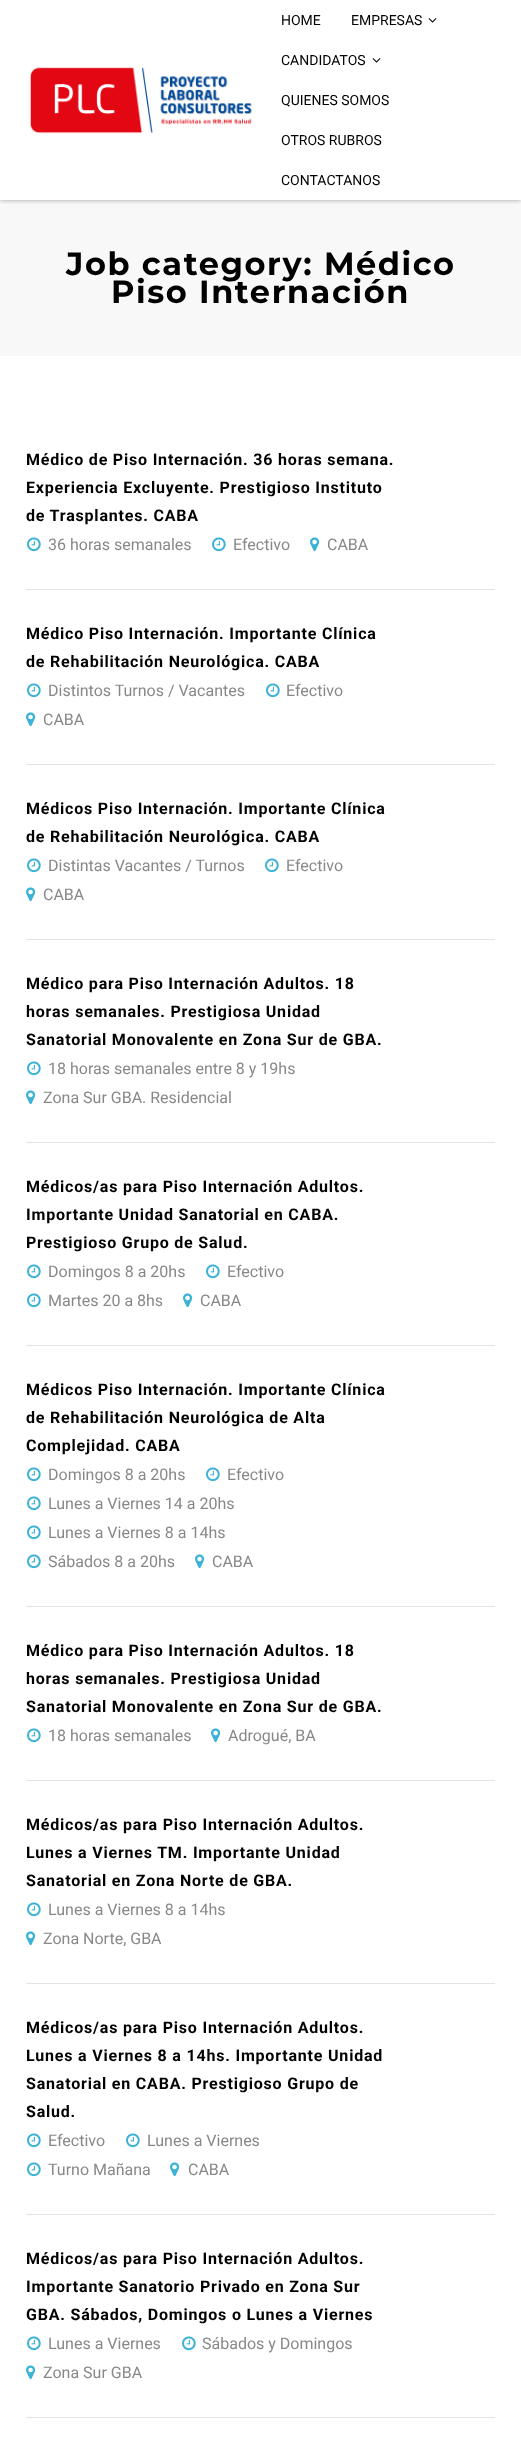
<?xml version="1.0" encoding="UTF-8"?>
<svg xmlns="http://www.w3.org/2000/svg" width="521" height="2448">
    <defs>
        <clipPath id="clip1"><rect x="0" y="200" width="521" height="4"/></clipPath>
        <filter id="blur1" x="-50%" y="-200%" width="200%" height="500%"><feGaussianBlur stdDeviation="2.5"/></filter>
    </defs>
    <rect width="100%" height="100%" fill="#FFFFFF"/>
    <rect x="0" y="200" width="521" height="156" fill="#F8F8F8"/>
    <g clip-path="url(#clip1)">
        <rect x="0" y="0" width="521" height="200" fill="#000000" fill-opacity="0.37" filter="url(#blur1)"/>
    </g>
    <image x="30" y="67" width="223" height="67" href="img_01.png"/>
    <text x="281" y="25" font-family="Roboto" font-size="14" fill="#000000">HOME</text>
    <text x="351" y="25" font-family="Roboto" font-size="14" fill="#000000">EMPRESAS</text>
    <image x="428" y="18" width="9" height="5" href="img_02.png"/>
    <text x="281" y="65" font-family="Roboto" font-size="14" fill="#000000">CANDIDATOS</text>
    <image x="372" y="58" width="9" height="5" href="img_02.png"/>
    <text x="281" y="105" font-family="Roboto" font-size="14" fill="#000000">QUIENES SOMOS</text>
    <text x="281" y="145" font-family="Roboto" font-size="14" fill="#000000">OTROS RUBROS</text>
    <text x="281" y="185" font-family="Roboto" font-size="14" fill="#000000">CONTACTANOS</text>
    <text x="66" y="275" font-family="Montserrat" font-size="32" font-weight="100" letter-spacing="1.6" fill="#000000">Job category: Médico</text>
    <text x="111" y="303" font-family="Montserrat" font-size="32" font-weight="100" letter-spacing="1.6" fill="#000000">Piso Internación</text>
    <rect x="26" y="589" width="469" height="1" fill="#E4E4E4"/>
    <text font-family="Roboto" font-size="16" font-weight="700" letter-spacing="0.8" fill="#000000">
        <tspan x="26" y="465">Médico de Piso Internación. 36 horas semana.</tspan>
        <tspan x="26" y="493">Experiencia Excluyente. Prestigioso Instituto</tspan>
        <tspan x="26" y="521">de Trasplantes. CABA</tspan>
    </text>
    <image x="27" y="537" width="14" height="15" href="img_03.png"/>
    <text x="48" y="550" font-family="Roboto" font-size="16" fill="#888888">36 horas semanales</text>
    <image x="212" y="537" width="14" height="15" href="img_03.png"/>
    <text x="233" y="550" font-family="Roboto" font-size="16" fill="#888888">Efectivo</text>
    <image x="310" y="537" width="10" height="15" href="img_04.png"/>
    <text x="327" y="550" font-family="Roboto" font-size="16" fill="#888888">CABA</text>
    <rect x="26" y="764" width="469" height="1" fill="#E4E4E4"/>
    <text font-family="Roboto" font-size="16" font-weight="700" letter-spacing="0.8" fill="#000000">
        <tspan x="26" y="639">Médico Piso Internación. Importante Clínica</tspan>
        <tspan x="26" y="667">de Rehabilitación Neurológica. CABA</tspan>
    </text>
    <image x="27" y="683" width="14" height="15" href="img_03.png"/>
    <text x="48" y="696" font-family="Roboto" font-size="16" fill="#888888">Distintos Turnos / Vacantes</text>
    <image x="266" y="683" width="14" height="15" href="img_03.png"/>
    <text x="286" y="696" font-family="Roboto" font-size="16" fill="#888888">Efectivo</text>
    <image x="26" y="712" width="10" height="15" href="img_04.png"/>
    <text x="43" y="725" font-family="Roboto" font-size="16" fill="#888888">CABA</text>
    <rect x="26" y="939" width="469" height="1" fill="#E4E4E4"/>
    <text font-family="Roboto" font-size="16" font-weight="700" letter-spacing="0.8" fill="#000000">
        <tspan x="26" y="814">Médicos Piso Internación. Importante Clínica</tspan>
        <tspan x="26" y="842">de Rehabilitación Neurológica. CABA</tspan>
    </text>
    <image x="27" y="858" width="14" height="15" href="img_03.png"/>
    <text x="48" y="871" font-family="Roboto" font-size="16" fill="#888888">Distintas Vacantes / Turnos</text>
    <image x="265" y="858" width="14" height="15" href="img_03.png"/>
    <text x="286" y="871" font-family="Roboto" font-size="16" fill="#888888">Efectivo</text>
    <image x="26" y="887" width="10" height="15" href="img_04.png"/>
    <text x="43" y="900" font-family="Roboto" font-size="16" fill="#888888">CABA</text>
    <rect x="26" y="1142" width="469" height="1" fill="#E4E4E4"/>
    <text font-family="Roboto" font-size="16" font-weight="700" letter-spacing="0.8" fill="#000000">
        <tspan x="26" y="989">Médico para Piso Internación Adultos. 18</tspan>
        <tspan x="26" y="1017">horas semanales. Prestigiosa Unidad</tspan>
        <tspan x="26" y="1045">Sanatorial Monovalente en Zona Sur de GBA.</tspan>
    </text>
    <image x="27" y="1061" width="14" height="15" href="img_03.png"/>
    <text x="48" y="1074" font-family="Roboto" font-size="16" fill="#888888">18 horas semanales entre 8 y 19hs</text>
    <image x="26" y="1090" width="10" height="15" href="img_04.png"/>
    <text x="43" y="1103" font-family="Roboto" font-size="16" fill="#888888">Zona Sur GBA. Residencial</text>
    <rect x="26" y="1345" width="469" height="1" fill="#E4E4E4"/>
    <text font-family="Roboto" font-size="16" font-weight="700" letter-spacing="0.8" fill="#000000">
        <tspan x="26" y="1192">Médicos/as para Piso Internación Adultos.</tspan>
        <tspan x="26" y="1220">Importante Unidad Sanatorial en CABA.</tspan>
        <tspan x="26" y="1248">Prestigioso Grupo de Salud.</tspan>
    </text>
    <image x="27" y="1264" width="14" height="15" href="img_03.png"/>
    <text x="48" y="1277" font-family="Roboto" font-size="16" fill="#888888">Domingos 8 a 20hs</text>
    <image x="206" y="1264" width="14" height="15" href="img_03.png"/>
    <text x="227" y="1277" font-family="Roboto" font-size="16" fill="#888888">Efectivo</text>
    <image x="27" y="1293" width="14" height="15" href="img_03.png"/>
    <text x="48" y="1306" font-family="Roboto" font-size="16" fill="#888888">Martes 20 a 8hs</text>
    <image x="183" y="1293" width="10" height="15" href="img_04.png"/>
    <text x="200" y="1306" font-family="Roboto" font-size="16" fill="#888888">CABA</text>
    <rect x="26" y="1606" width="469" height="1" fill="#E4E4E4"/>
    <text font-family="Roboto" font-size="16" font-weight="700" letter-spacing="0.8" fill="#000000">
        <tspan x="26" y="1395">Médicos Piso Internación. Importante Clínica</tspan>
        <tspan x="26" y="1423">de Rehabilitación Neurológica de Alta</tspan>
        <tspan x="26" y="1451">Complejidad. CABA</tspan>
    </text>
    <image x="27" y="1467" width="14" height="15" href="img_03.png"/>
    <text x="48" y="1480" font-family="Roboto" font-size="16" fill="#888888">Domingos 8 a 20hs</text>
    <image x="206" y="1467" width="14" height="15" href="img_03.png"/>
    <text x="227" y="1480" font-family="Roboto" font-size="16" fill="#888888">Efectivo</text>
    <image x="27" y="1496" width="14" height="15" href="img_03.png"/>
    <text x="48" y="1509" font-family="Roboto" font-size="16" fill="#888888">Lunes a Viernes 14 a 20hs</text>
    <image x="27" y="1525" width="14" height="15" href="img_03.png"/>
    <text x="48" y="1538" font-family="Roboto" font-size="16" fill="#888888">Lunes a Viernes 8 a 14hs</text>
    <image x="27" y="1554" width="14" height="15" href="img_03.png"/>
    <text x="48" y="1567" font-family="Roboto" font-size="16" fill="#888888">Sábados 8 a 20hs</text>
    <image x="195" y="1554" width="10" height="15" href="img_04.png"/>
    <text x="212" y="1567" font-family="Roboto" font-size="16" fill="#888888">CABA</text>
    <rect x="26" y="1780" width="469" height="1" fill="#E4E4E4"/>
    <text font-family="Roboto" font-size="16" font-weight="700" letter-spacing="0.8" fill="#000000">
        <tspan x="26" y="1656">Médico para Piso Internación Adultos. 18</tspan>
        <tspan x="26" y="1684">horas semanales. Prestigiosa Unidad</tspan>
        <tspan x="26" y="1712">Sanatorial Monovalente en Zona Sur de GBA.</tspan>
    </text>
    <image x="27" y="1728" width="14" height="15" href="img_03.png"/>
    <text x="48" y="1741" font-family="Roboto" font-size="16" fill="#888888">18 horas semanales</text>
    <image x="211" y="1728" width="10" height="15" href="img_04.png"/>
    <text x="228" y="1741" font-family="Roboto" font-size="16" fill="#888888">Adrogué, BA</text>
    <rect x="26" y="1983" width="469" height="1" fill="#E4E4E4"/>
    <text font-family="Roboto" font-size="16" font-weight="700" letter-spacing="0.8" fill="#000000">
        <tspan x="26" y="1830">Médicos/as para Piso Internación Adultos.</tspan>
        <tspan x="26" y="1858">Lunes a Viernes TM. Importante Unidad</tspan>
        <tspan x="26" y="1886">Sanatorial en Zona Norte de GBA.</tspan>
    </text>
    <image x="27" y="1902" width="14" height="15" href="img_03.png"/>
    <text x="48" y="1915" font-family="Roboto" font-size="16" fill="#888888">Lunes a Viernes 8 a 14hs</text>
    <image x="26" y="1931" width="10" height="15" href="img_04.png"/>
    <text x="43" y="1944" font-family="Roboto" font-size="16" fill="#888888">Zona Norte, GBA</text>
    <rect x="26" y="2214" width="469" height="1" fill="#E4E4E4"/>
    <text font-family="Roboto" font-size="16" font-weight="700" letter-spacing="0.8" fill="#000000">
        <tspan x="26" y="2033">Médicos/as para Piso Internación Adultos.</tspan>
        <tspan x="26" y="2061">Lunes a Viernes 8 a 14hs. Importante Unidad</tspan>
        <tspan x="26" y="2089">Sanatorial en CABA. Prestigioso Grupo de</tspan>
        <tspan x="26" y="2117">Salud.</tspan>
    </text>
    <image x="27" y="2133" width="14" height="15" href="img_03.png"/>
    <text x="48" y="2146" font-family="Roboto" font-size="16" fill="#888888">Efectivo</text>
    <image x="126" y="2133" width="14" height="15" href="img_03.png"/>
    <text x="147" y="2146" font-family="Roboto" font-size="16" fill="#888888">Lunes a Viernes</text>
    <image x="27" y="2162" width="14" height="15" href="img_03.png"/>
    <text x="48" y="2175" font-family="Roboto" font-size="16" fill="#888888">Turno Mañana</text>
    <image x="170" y="2162" width="10" height="15" href="img_04.png"/>
    <text x="188" y="2175" font-family="Roboto" font-size="16" fill="#888888">CABA</text>
    <rect x="26" y="2417" width="469" height="1" fill="#E4E4E4"/>
    <text font-family="Roboto" font-size="16" font-weight="700" letter-spacing="0.8" fill="#000000">
        <tspan x="26" y="2264">Médicos/as para Piso Internación Adultos.</tspan>
        <tspan x="26" y="2292">Importante Sanatorio Privado en Zona Sur</tspan>
        <tspan x="26" y="2320">GBA. Sábados, Domingos o Lunes a Viernes</tspan>
    </text>
    <image x="27" y="2336" width="14" height="15" href="img_03.png"/>
    <text x="48" y="2349" font-family="Roboto" font-size="16" fill="#888888">Lunes a Viernes</text>
    <image x="182" y="2336" width="14" height="15" href="img_03.png"/>
    <text x="202" y="2349" font-family="Roboto" font-size="16" fill="#888888">Sábados y Domingos</text>
    <image x="26" y="2365" width="10" height="15" href="img_04.png"/>
    <text x="43" y="2378" font-family="Roboto" font-size="16" fill="#888888">Zona Sur GBA</text>
</svg>
